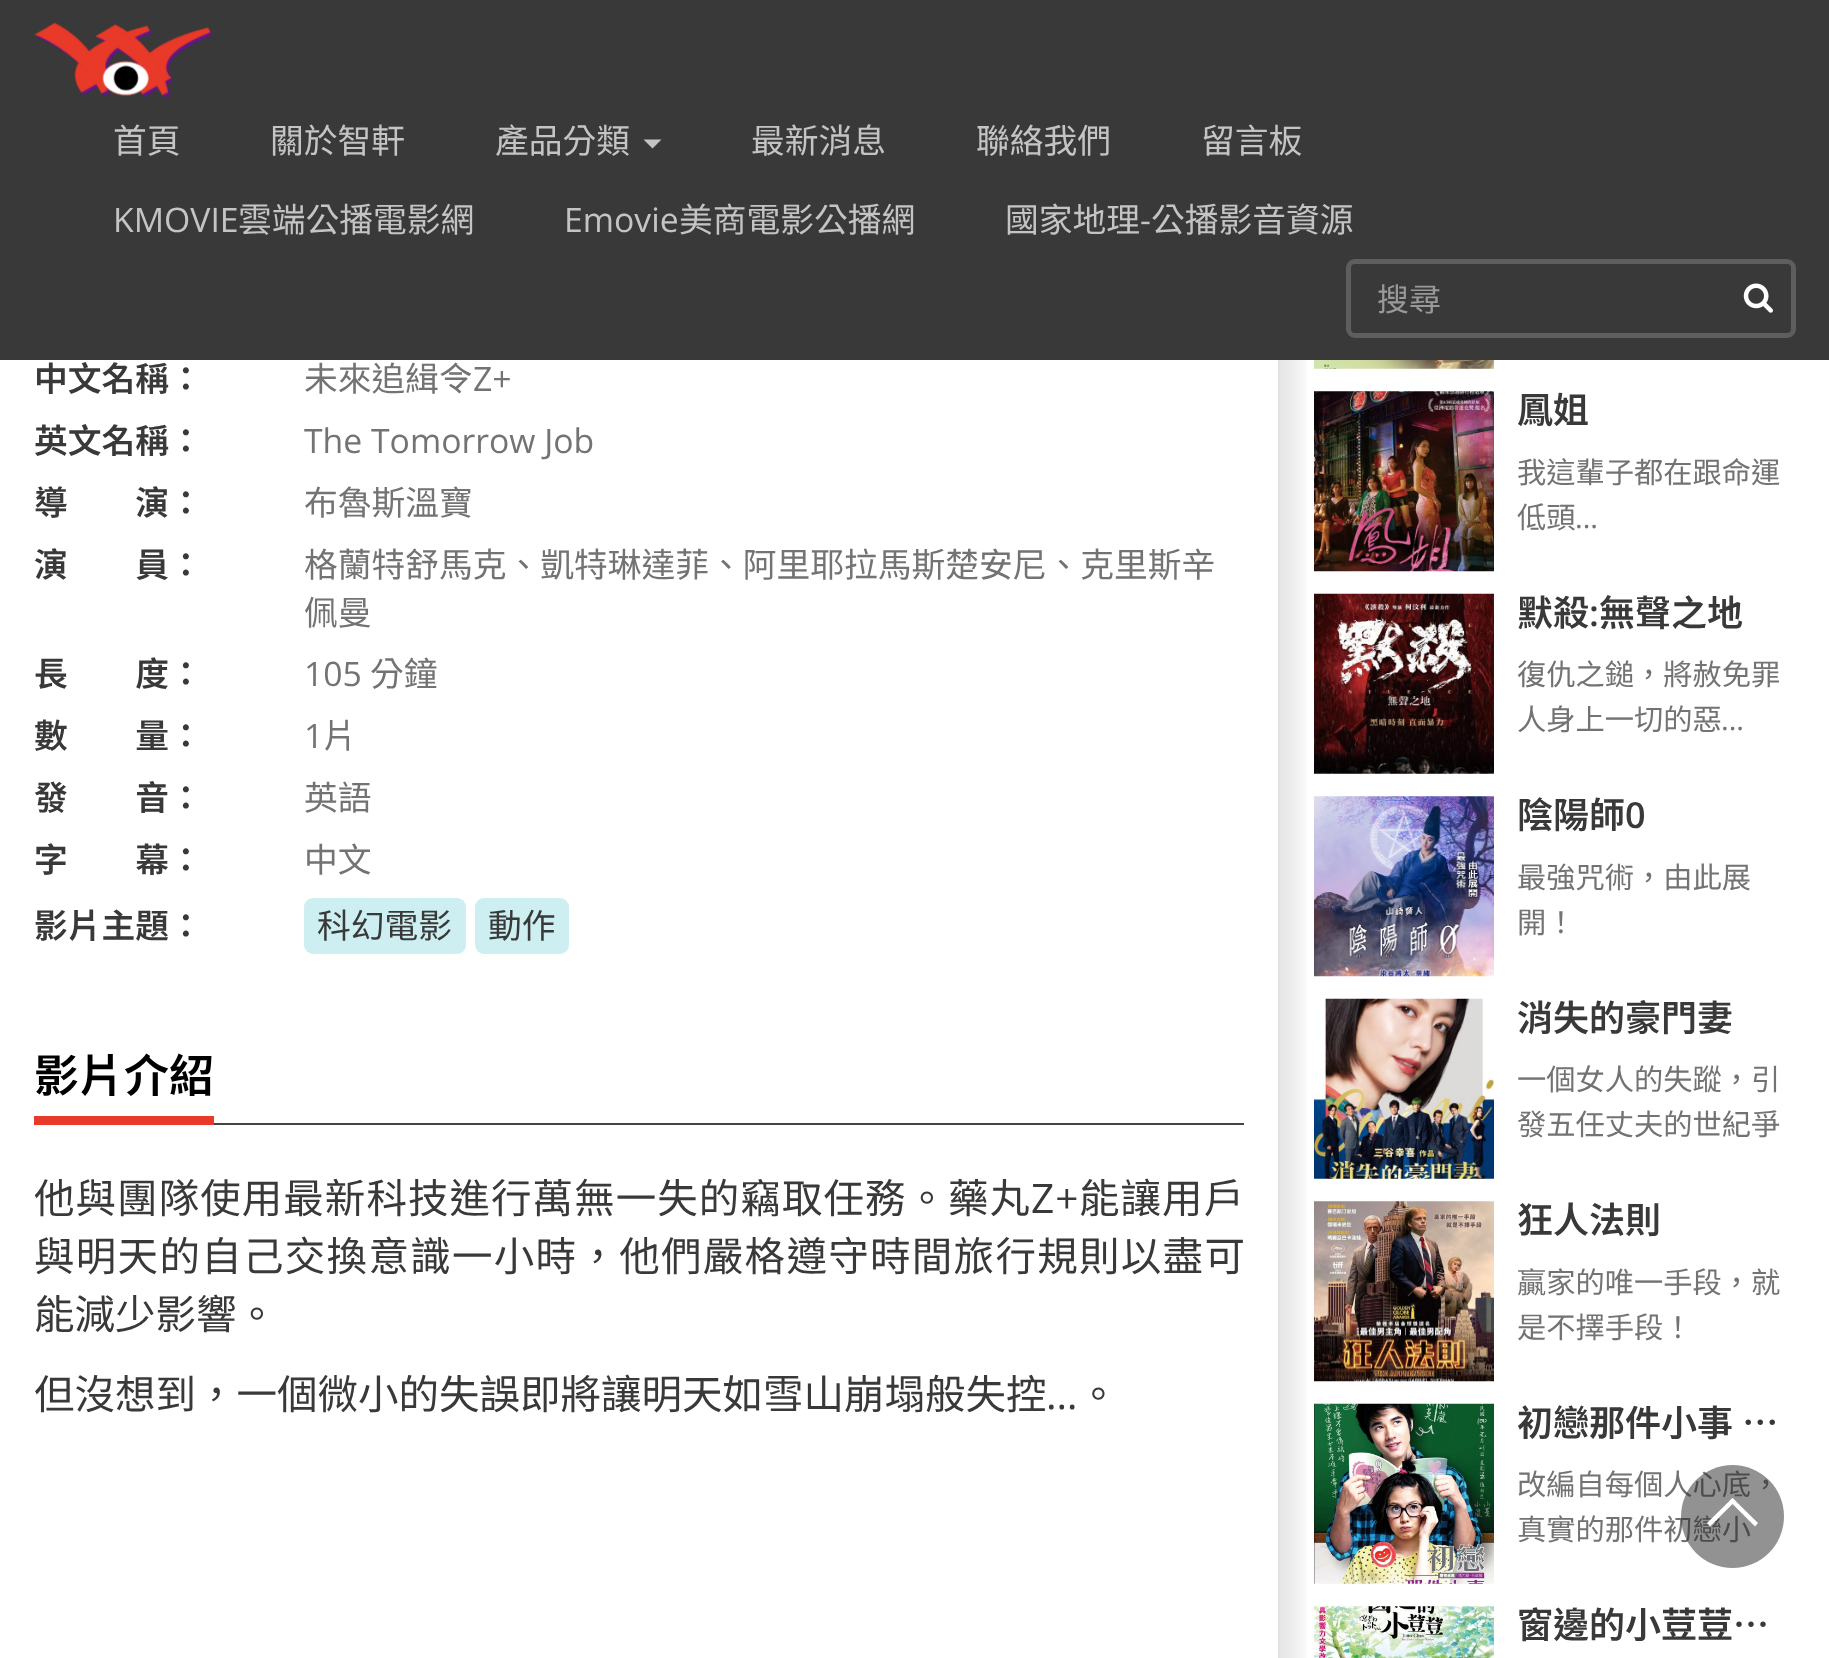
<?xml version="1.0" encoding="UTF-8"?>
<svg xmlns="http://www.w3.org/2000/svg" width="1829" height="1658">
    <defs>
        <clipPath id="clip1"><rect x="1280" y="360" width="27" height="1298"/></clipPath>
        <filter id="blur1" x="-50%" y="-200%" width="200%" height="500%"><feGaussianBlur stdDeviation="11"/></filter>
    </defs>
    <rect width="100%" height="100%" fill="#FFFFFF"/>
    <image x="1314" y="360" width="180" height="9" href="img_03.png"/>
    <image x="1314" y="391" width="180" height="181" href="img_04.png"/>
    <image x="1314" y="593" width="180" height="181" href="img_05.png"/>
    <image x="1314" y="796" width="180" height="181" href="img_06.png"/>
    <image x="1314" y="998" width="180" height="181" href="img_07.png"/>
    <image x="1314" y="1201" width="180" height="181" href="img_08.png"/>
    <image x="1314" y="1403" width="180" height="181" href="img_09.png"/>
    <image x="1314" y="1606" width="180" height="52" href="img_10.png"/>
    <g clip-path="url(#clip1)">
        <rect x="18" y="-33" width="1280" height="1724" fill="#000000" fill-opacity="0.1" filter="url(#blur1)"/>
    </g>
    <rect x="0" y="0" width="1829" height="360" fill="#393939"/>
    <image x="34" y="22" width="179" height="77" href="img_01.png"/>
    <text x="113" y="153" font-family="Noto Sans TC" font-size="33.75" fill="#C4C4C4">首頁</text>
    <text x="270" y="153" font-family="Noto Sans TC" font-size="33.75" fill="#C4C4C4">關於智軒</text>
    <text x="495" y="153" font-family="Noto Sans TC" font-size="33.75" fill="#C4C4C4">產品分類</text>
    <path d="M 643.5 139.5 H 661.5 L 652.5 148.5 Z" fill="#C4C4C4"/>
    <text x="751" y="153" font-family="Noto Sans TC" font-size="33.75" fill="#C4C4C4">最新消息</text>
    <text x="976" y="153" font-family="Noto Sans TC" font-size="33.75" fill="#C4C4C4">聯絡我們</text>
    <text x="1201" y="153" font-family="Noto Sans TC" font-size="33.75" fill="#C4C4C4">留言板</text>
    <text x="113" y="232" font-family="Open Sans" font-size="33.75" fill="#C4C4C4">KMOVIE</text>
    <text x="238" y="232" font-family="Noto Sans TC" font-size="33.75" fill="#C4C4C4">雲端公播電影網</text>
    <text x="564" y="232" font-family="Open Sans" font-size="33.75" fill="#C4C4C4">Emovie</text>
    <text x="679" y="232" font-family="Noto Sans TC" font-size="33.75" fill="#C4C4C4">美商電影公播網</text>
    <text x="1005" y="232" font-family="Noto Sans TC" font-size="33.75" fill="#C4C4C4">國家地理</text>
    <text x="1140" y="232" font-family="Open Sans" font-size="33.75" fill="#C4C4C4">-</text>
    <text x="1151" y="232" font-family="Noto Sans TC" font-size="33.75" fill="#C4C4C4">公播影音資源</text>
    <rect x="1348.5" y="261.5" width="445" height="74" rx="6.5" fill="none" stroke="#5F5D5D" stroke-width="5"/>
    <text x="1377" y="311" font-family="Noto Sans TC" font-size="32" fill="#999999">搜尋</text>
    <image x="1743" y="283" width="30" height="30" href="img_02.png"/>
    <rect x="1278" y="360" width="2" height="1298" fill="#E1E1E1"/>
    <text x="34" y="391" font-family="Noto Sans TC" font-size="33.75" font-weight="600" fill="#393939">中文名稱：</text>
    <text x="304" y="391" font-family="Noto Sans TC" font-size="33.75" fill="#737373">未來追緝令</text>
    <text x="473" y="391" font-family="Open Sans" font-size="33.75" fill="#737373">Z+</text>
    <text x="34" y="453" font-family="Noto Sans TC" font-size="33.75" font-weight="600" fill="#393939">英文名稱：</text>
    <text x="304" y="453" font-family="Open Sans" font-size="33.75" fill="#737373">The Tomorrow Job</text>
    <text x="34" y="515" font-family="Noto Sans TC" font-size="33.75" font-weight="600" fill="#393939">導　　演：</text>
    <text x="304" y="515" font-family="Noto Sans TC" font-size="33.75" fill="#737373">布魯斯溫寶</text>
    <text x="34" y="577" font-family="Noto Sans TC" font-size="33.75" font-weight="600" fill="#393939">演　　員：</text>
    <text font-family="Noto Sans TC" font-size="33.75" fill="#737373">
        <tspan x="304" y="577">格蘭特舒馬克、凱特琳達菲、阿里耶拉馬斯楚安尼、克里斯辛</tspan>
        <tspan x="304" y="625">佩曼</tspan>
    </text>
    <text x="34" y="686" font-family="Noto Sans TC" font-size="33.75" font-weight="600" fill="#393939">長　　度：</text>
    <text x="304" y="686" font-family="Open Sans" font-size="33.75" fill="#737373">105</text>
    <text x="370" y="686" font-family="Noto Sans TC" font-size="33.75" fill="#737373">分鐘</text>
    <text x="34" y="748" font-family="Noto Sans TC" font-size="33.75" font-weight="600" fill="#393939">數　　量：</text>
    <text x="304" y="748" font-family="Open Sans" font-size="33.75" fill="#737373">1</text>
    <text x="323" y="748" font-family="Noto Sans TC" font-size="33.75" fill="#737373">片</text>
    <text x="34" y="810" font-family="Noto Sans TC" font-size="33.75" font-weight="600" fill="#393939">發　　音：</text>
    <text x="304" y="810" font-family="Noto Sans TC" font-size="33.75" fill="#737373">英語</text>
    <text x="34" y="872" font-family="Noto Sans TC" font-size="33.75" font-weight="600" fill="#393939">字　　幕：</text>
    <text x="304" y="872" font-family="Noto Sans TC" font-size="33.75" fill="#737373">中文</text>
    <text x="34" y="938" font-family="Noto Sans TC" font-size="33.75" font-weight="600" fill="#393939">影片主題：</text>
    <rect x="304" y="898" width="162" height="56" rx="9" fill="#CDEFF2"/>
    <text x="317" y="938" font-family="Noto Sans TC" font-size="33.75" fill="#393939">科幻電影</text>
    <rect x="475" y="898" width="94" height="56" rx="9" fill="#CDEFF2"/>
    <text x="488" y="938" font-family="Noto Sans TC" font-size="33.75" fill="#393939">動作</text>
    <rect x="214" y="1123" width="1030" height="2" fill="#434343"/>
    <text x="34" y="1092" font-family="Noto Sans TC" font-size="45" font-weight="600" fill="#000000">影片介紹</text>
    <rect x="34" y="1116" width="180" height="9" fill="#E83929"/>
    <text x="34" y="1213" font-family="Noto Sans TC" font-size="40.5" letter-spacing="1.05" fill="#393939">他與團隊使用最新科技進行萬無一失的竊取任務。藥丸</text>
    <text x="1031" y="1213" font-family="Open Sans" font-size="40.5" letter-spacing="1.05" fill="#393939">Z+</text>
    <text x="1079" y="1213" font-family="Noto Sans TC" font-size="40.5" letter-spacing="1.05" fill="#393939">能讓用戶</text>
    <text x="34" y="1271" font-family="Noto Sans TC" font-size="40.5" letter-spacing="1.3" fill="#393939">與明天的自己交換意識一小時，他們嚴格遵守時間旅行規則以盡可</text>
    <text font-family="Noto Sans TC" font-size="40.5" fill="#393939">
        <tspan x="34" y="1329">能減少影響。</tspan>
        <tspan x="34" y="1409">但沒想到，一個微小的失誤即將讓明天如雪山崩塌般失控</tspan>
    </text>
    <text x="1078" y="1409" font-family="Noto Sans TC" font-size="40.5" fill="#393939">。</text>
    <text x="1046" y="1409" font-family="Open Sans" font-size="40.5" fill="#393939">…</text>
    <text x="1517" y="423" font-family="Noto Sans TC" font-size="36" font-weight="600" fill="#393939">鳳姐</text>
    <text font-family="Noto Sans TC" font-size="29.25" fill="#737373">
        <tspan x="1517" y="483">我這輩子都在跟命運</tspan>
        <tspan x="1517" y="528">低頭</tspan>
    </text>
    <text x="1575" y="528" font-family="Open Sans" font-size="29.25" fill="#737373">...</text>
    <text x="1517" y="626" font-family="Noto Sans TC" font-size="36" font-weight="600" fill="#393939">默殺</text>
    <text x="1589" y="626" font-family="Open Sans" font-size="36" font-weight="600" fill="#393939">:</text>
    <text x="1599" y="626" font-family="Noto Sans TC" font-size="36" font-weight="600" fill="#393939">無聲之地</text>
    <text font-family="Noto Sans TC" font-size="29.25" fill="#737373">
        <tspan x="1517" y="685">復仇之鎚，將赦免罪</tspan>
        <tspan x="1517" y="730">人身上一切的惡</tspan>
    </text>
    <text x="1721" y="730" font-family="Open Sans" font-size="29.25" fill="#737373">...</text>
    <text x="1517" y="828" font-family="Noto Sans TC" font-size="36" font-weight="600" fill="#393939">陰陽師</text>
    <text x="1625" y="828" font-family="Open Sans" font-size="36" font-weight="600" fill="#393939">0</text>
    <text font-family="Noto Sans TC" font-size="29.25" fill="#737373">
        <tspan x="1517" y="888">最強咒術，由此展</tspan>
        <tspan x="1517" y="933">開！</tspan>
    </text>
    <text x="1517" y="1031" font-family="Noto Sans TC" font-size="36" font-weight="600" fill="#393939">消失的豪門妻</text>
    <text font-family="Noto Sans TC" font-size="29.25" fill="#737373">
        <tspan x="1517" y="1090">一個女人的失蹤，引</tspan>
        <tspan x="1517" y="1135">發五任丈夫的世紀爭</tspan>
    </text>
    <text x="1517" y="1233" font-family="Noto Sans TC" font-size="36" font-weight="600" fill="#393939">狂人法則</text>
    <text font-family="Noto Sans TC" font-size="29.25" fill="#737373">
        <tspan x="1517" y="1293">贏家的唯一手段，就</tspan>
        <tspan x="1517" y="1338">是不擇手段！</tspan>
    </text>
    <text x="1517" y="1436" word-spacing="1" font-family="Noto Sans TC" font-size="36" font-weight="600" fill="#393939">初戀那件小事 …</text>
    <text font-family="Noto Sans TC" font-size="29.25" fill="#737373">
        <tspan x="1517" y="1495">改編自每個人心底，</tspan>
        <tspan x="1517" y="1540">真實的那件初戀小</tspan>
    </text>
    <text x="1517" y="1638" font-family="Noto Sans TC" font-size="36" font-weight="600" fill="#393939">窗邊的小荳荳…</text>
    <circle cx="1732.5" cy="1516.5" r="51.5" fill="#252525" fill-opacity="0.5"/>
    <path d="M 1735.5 1501 L 1710 1526.5 L 1707 1523 L 1732.5 1498 Z" fill="#FFFFFF"/>
    <path d="M 1758 1523 L 1755 1526.5 L 1729.5 1501 L 1732.5 1498 Z" fill="#FFFFFF"/>
</svg>
